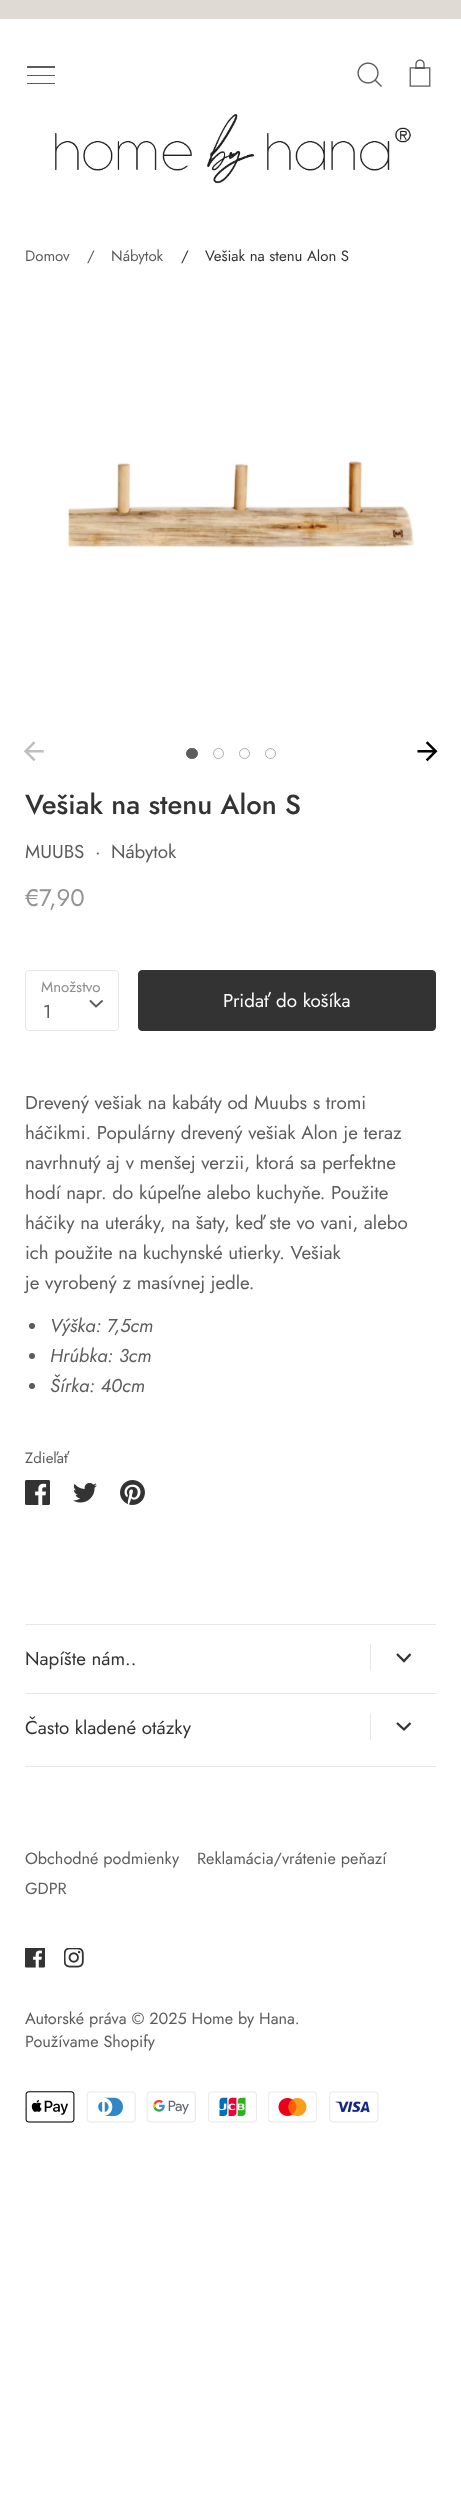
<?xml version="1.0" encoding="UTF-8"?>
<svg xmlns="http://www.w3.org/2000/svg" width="461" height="2493">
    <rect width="100%" height="100%" fill="#FFFFFF"/>
    <rect x="0" y="0" width="461" height="19" fill="#DFDAD3"/>
    <rect x="27" y="66" width="28" height="2" fill="#5C5C5C"/>
    <rect x="27" y="75" width="28" height="1" fill="#5C5C5C"/>
    <rect x="27" y="83" width="28" height="1" fill="#5C5C5C"/>
    <image x="357" y="62" width="25" height="25" href="img_01.png"/>
    <image x="409" y="59" width="22" height="28" href="img_02.png"/>
    <image x="55" y="114" width="356" height="70" href="img_03.png"/>
    <text x="25" y="261" font-family="Jost" font-size="15" fill="#5C5C5C">Domov</text>
    <text x="87" y="261" font-family="Jost" font-size="15" fill="#5C5C5C">/</text>
    <text x="111" y="261" font-family="Jost" font-size="15" fill="#5C5C5C">Nábytok</text>
    <text x="181" y="261" font-family="Jost" font-size="15" fill="#333333">/</text>
    <text x="205" y="261" font-family="Jost" font-size="15" fill="#333333">Vešiak na stenu Alon S</text>
    <image x="67" y="460" width="347" height="88" href="img_04.png"/>
    <image x="24" y="741" width="20" height="20" href="img_05.png"/>
    <image x="417" y="741" width="21" height="21" href="img_06.png"/>
    <rect x="186.5" y="748.5" width="11" height="10" rx="5" fill="#5C5C5C" stroke="#5C5C5C"/>
    <circle cx="218.5" cy="753.5" r="5" fill="none" stroke="#AEAEAE"/>
    <circle cx="244.5" cy="753.5" r="5" fill="none" stroke="#AEAEAE"/>
    <circle cx="270.5" cy="753.5" r="5" fill="none" stroke="#AEAEAE"/>
    <text x="25" y="814" font-family="Jost" font-size="27.5" font-weight="500" fill="#333333">Vešiak na stenu Alon S</text>
    <text x="25" y="858" font-family="Jost" font-size="18.75" fill="#5C5C5C">MUUBS</text>
    <text x="95" y="858" font-family="Jost" font-size="18.75" fill="#5C5C5C">·</text>
    <text x="111" y="858" font-family="Jost" font-size="18.75" fill="#5C5C5C">Nábytok</text>
    <text x="25" y="906" font-family="Jost" font-size="24" fill="#939393">€7,90</text>
    <text x="41" y="992" font-family="Jost" font-size="15" fill="#8D8D8D">Množstvo</text>
    <rect x="25.5" y="970.5" width="93" height="60" rx="3.5" fill="none" stroke="#E7E7E7"/>
    <text x="43" y="1018" font-family="Jost" font-size="18.75" fill="#5C5C5C">1</text>
    <path d="M 90.5 1001 L 96 1006.5 L 102 1001" fill="none" stroke="#5C5C5C" stroke-width="1.9" stroke-linecap="round" stroke-linejoin="round"/>
    <rect x="138.5" y="970.5" width="297" height="60" rx="3.5" fill="#333333" stroke="#333333"/>
    <text x="223" y="1007" font-family="Jost" font-size="18.75" fill="#FFFFFF">Pridať do košíka</text>
    <text font-family="Jost" font-size="18.75" fill="#5C5C5C">
        <tspan x="25" y="1109">Drevený vešiak na kabáty od Muubs s tromi</tspan>
        <tspan x="25" y="1139">háčikmi. Populárny drevený vešiak Alon je teraz</tspan>
        <tspan x="25" y="1169">navrhnutý aj v menšej verzii, ktorá sa perfektne</tspan>
        <tspan x="25" y="1199">hodí napr. do kúpeľne alebo kuchyňe. Použite</tspan>
        <tspan x="25" y="1229">háčiky na uteráky, na šaty, keď ste vo vani, alebo</tspan>
        <tspan x="25" y="1259">ich použite na kuchynské utierky. Vešiak</tspan>
        <tspan x="25" y="1289">je vyrobený z masívnej jedle.</tspan>
    </text>
    <circle cx="32" cy="1326" r="3" fill="#5C5C5C"/>
    <text x="50" y="1332" font-family="Jost" font-size="18.75" font-style="italic" fill="#5C5C5C">Výška: 7,5cm</text>
    <circle cx="32" cy="1356" r="3" fill="#5C5C5C"/>
    <text x="50" y="1362" font-family="Jost" font-size="18.75" font-style="italic" fill="#5C5C5C">Hrúbka: 3cm</text>
    <circle cx="32" cy="1386" r="3" fill="#5C5C5C"/>
    <text x="50" y="1392" font-family="Jost" font-size="18.75" font-style="italic" fill="#5C5C5C">Šírka: 40cm</text>
    <text x="25" y="1463" font-family="Jost" font-size="15" fill="#5C5C5C">Zdieľať</text>
    <image x="25" y="1480" width="25" height="25" href="img_07.png"/>
    <image x="73" y="1482" width="24" height="21" href="img_08.png"/>
    <image x="120" y="1480" width="25" height="25" href="img_09.png"/>
    <rect x="25" y="1624" width="411" height="1" fill="#E7E7E7"/>
    <rect x="25" y="1693" width="411" height="1" fill="#E7E7E7"/>
    <text x="25" y="1665" font-family="Jost" font-size="18.75" fill="#333333">Napíšte nám..</text>
    <rect x="370" y="1644" width="1" height="27" fill="#E7E7E7"/>
    <path d="M 397 1654 L 404 1661 L 410.5 1654" fill="none" stroke="#333333" stroke-width="2.3"/>
    <text x="25" y="1734" font-family="Jost" font-size="18.75" fill="#333333">Často kladené otázky</text>
    <rect x="370" y="1713" width="1" height="27" fill="#E7E7E7"/>
    <path d="M 397 1723 L 404 1729.5 L 410.5 1723" fill="none" stroke="#333333" stroke-width="2.3"/>
    <rect x="25" y="1766" width="411" height="1" fill="#E7E7E7"/>
    <text x="25" y="1864" font-family="Jost" font-size="16.25" fill="#5C5C5C">Obchodné podmienky</text>
    <text x="197" y="1864" font-family="Jost" font-size="16.25" fill="#5C5C5C">Reklamácia/vrátenie peňazí</text>
    <text x="25" y="1894" font-family="Jost" font-size="16.25" fill="#5C5C5C">GDPR</text>
    <image x="25" y="1948" width="20" height="20" href="img_10.png"/>
    <image x="64" y="1948" width="20" height="20" href="img_11.png"/>
    <text font-family="Jost" font-size="16.25" fill="#5C5C5C">
        <tspan x="25" y="2024">Autorské práva © 2025 Home by Hana.</tspan>
        <tspan x="25" y="2047">Používame Shopify</tspan>
    </text>
    <image x="25" y="2091" width="50" height="32" href="img_12.png"/>
    <image x="86" y="2091" width="50" height="32" href="img_13.png"/>
    <image x="146" y="2091" width="50" height="32" href="img_14.png"/>
    <image x="208" y="2091" width="49" height="32" href="img_15.png"/>
    <image x="268" y="2091" width="49" height="32" href="img_16.png"/>
    <image x="329" y="2091" width="50" height="32" href="img_17.png"/>
</svg>
